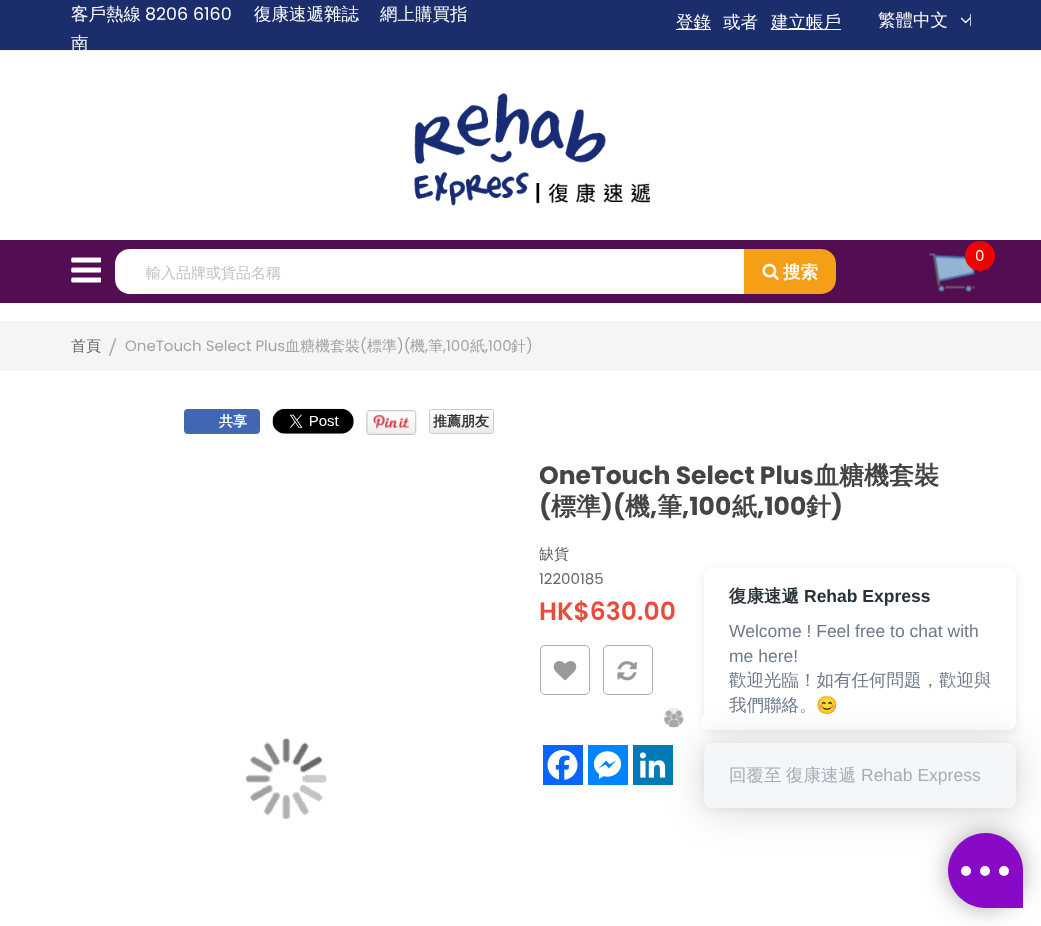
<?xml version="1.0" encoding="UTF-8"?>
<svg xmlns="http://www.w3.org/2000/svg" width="1041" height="926">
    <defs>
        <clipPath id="clip1"><rect x="109" y="334" width="7" height="22"/></clipPath>
        <clipPath id="clip2"><rect x="429" y="409" width="65" height="25" rx="2.5"/></clipPath>
        <linearGradient id="g1" gradientUnits="userSpaceOnUse" x1="461" y1="410" x2="461" y2="433"><stop offset="0" stop-color="#FFFFFF"/><stop offset="1" stop-color="#EAEAEA"/></linearGradient>
        <clipPath id="clip3"><path d="M 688 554 H 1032 V 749 H 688 Z M 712 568 H 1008 C 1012.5 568 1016 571.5 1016 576 V 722 C 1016 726.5 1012.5 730 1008 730 H 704 V 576 C 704 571.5 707.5 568 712 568 Z" clip-rule="evenodd"/></clipPath>
        <filter id="blur1" x="-50%" y="-200%" width="200%" height="500%"><feGaussianBlur stdDeviation="5"/></filter>
        <filter id="blur2" x="-50%" y="-200%" width="200%" height="500%"><feGaussianBlur stdDeviation="20"/></filter>
        <filter id="blur3" x="-50%" y="-200%" width="200%" height="500%"><feGaussianBlur stdDeviation="4"/></filter>
        <filter id="blur4" x="-50%" y="-200%" width="200%" height="500%"><feGaussianBlur stdDeviation="12.5"/></filter>
    </defs>
    <rect width="100%" height="100%" fill="#FFFFFF"/>
    <rect x="0" y="0" width="1041" height="50" fill="#1C2D6B"/>
    <rect x="0" y="50" width="1041" height="1" fill="#EEEEEE"/>
    <text x="71" y="20" font-family="WenQuanYi Zen Hei" font-size="17.5" font-weight="500" fill="#FFFFFF">客戶熱線</text>
    <text x="145" y="20" font-family="Poppins" font-size="17.5" fill="#FFFFFF">8206 6160</text>
    <text x="254" y="20" font-family="WenQuanYi Zen Hei" font-size="17.5" font-weight="500" fill="#FFFFFF">復康速遞雜誌</text>
    <text x="380" y="20" font-family="WenQuanYi Zen Hei" font-size="17.5" font-weight="500" fill="#FFFFFF">網上購買指</text>
    <text x="71" y="49" font-family="WenQuanYi Zen Hei" font-size="17.5" font-weight="500" fill="#FFFFFF">南</text>
    <rect x="676" y="29" width="35" height="1" fill="#FFFFFF"/>
    <text x="676" y="28" font-family="WenQuanYi Zen Hei" font-size="17.5" font-weight="500" fill="#FFFFFF">登錄</text>
    <text x="723" y="28" font-family="WenQuanYi Zen Hei" font-size="17.5" font-weight="500" fill="#FFFFFF">或者</text>
    <rect x="771" y="29" width="70" height="1" fill="#FFFFFF"/>
    <text x="771" y="28" font-family="WenQuanYi Zen Hei" font-size="17.5" font-weight="500" fill="#FFFFFF">建立帳戶</text>
    <text x="878" y="26" font-family="WenQuanYi Zen Hei" font-size="17.5" font-weight="500" fill="#FFFFFF">繁體中文</text>
    <rect x="970" y="14" width="1" height="12" fill="#CCCCCC"/>
    <image x="960" y="17" width="11" height="7" href="img_01.png"/>
    <rect x="0" y="240" width="1041" height="63" fill="#530E53"/>
    <image x="71" y="257" width="30" height="26" href="img_02.png"/>
    <image x="414" y="92" width="237" height="114" href="img_03.png"/>
    <image x="929" y="253" width="46" height="39" href="img_04.png"/>
    <circle cx="980" cy="256" r="15" fill="#F30000"/>
    <text x="975" y="261" font-family="Poppins" font-size="15" fill="#FFFFFF">0</text>
    <path d="M 130 249 H 744 V 294 H 130 C 121.5 294 115 287.5 115 279 V 264 C 115 255.5 121.5 249 130 249 Z" fill="#FFFFFF"/>
    <text x="146" y="278" font-family="WenQuanYi Zen Hei" font-size="15" font-weight="500" fill="#C2C2C2">輸入品牌或貨品名稱</text>
    <path d="M 744 249 H 821 C 829.5 249 836 255.5 836 264 V 279 C 836 287.5 829.5 294 821 294 H 744 Z" fill="#F49F15"/>
    <image x="762" y="263" width="17" height="17" href="img_05.png"/>
    <text x="783" y="278" font-family="WenQuanYi Zen Hei" font-size="17.5" font-weight="700" fill="#FFFFFF">搜索</text>
    <rect x="0" y="321" width="1041" height="50" fill="#F5F5F5"/>
    <text x="71" y="351" font-family="WenQuanYi Zen Hei" font-size="15" font-weight="500" fill="#666666">首頁</text>
    <g clip-path="url(#clip1)">
        <text x="108" y="358" font-family="Liberation Serif" font-size="30" fill="#A3A3A3">/</text>
    </g>
    <text x="125" y="351" font-family="Poppins" font-size="15" fill="#A3A3A3">OneTouch Select Plus</text>
    <text x="285" y="351" font-family="WenQuanYi Zen Hei" font-size="15" font-weight="500" fill="#A3A3A3">血糖機套裝</text>
    <text x="360" y="351" font-family="Poppins" font-size="15" fill="#A3A3A3">(</text>
    <text x="367" y="351" font-family="WenQuanYi Zen Hei" font-size="15" font-weight="500" fill="#A3A3A3">標準</text>
    <text x="397" y="351" font-family="Poppins" font-size="15" fill="#A3A3A3">)(</text>
    <text x="410" y="351" font-family="WenQuanYi Zen Hei" font-size="15" font-weight="500" fill="#A3A3A3">機</text>
    <text x="425" y="351" font-family="Poppins" font-size="15" fill="#A3A3A3">,</text>
    <text x="428" y="351" font-family="WenQuanYi Zen Hei" font-size="15" font-weight="500" fill="#A3A3A3">筆</text>
    <text x="443" y="351" font-family="Poppins" font-size="15" fill="#A3A3A3">,100</text>
    <text x="470" y="351" font-family="WenQuanYi Zen Hei" font-size="15" font-weight="500" fill="#A3A3A3">紙</text>
    <text x="485" y="351" font-family="Poppins" font-size="15" fill="#A3A3A3">,100</text>
    <text x="511" y="351" font-family="WenQuanYi Zen Hei" font-size="15" font-weight="500" fill="#A3A3A3">針</text>
    <text x="526" y="351" font-family="Poppins" font-size="15" fill="#A3A3A3">)</text>
    <rect x="184" y="409" width="76" height="25" rx="4" fill="#4267B2"/>
    <text x="219" y="426" font-family="WenQuanYi Zen Hei" font-size="14" font-weight="700" fill="#FFFFFF">共享</text>
    <image x="272" y="408" width="82" height="26" href="img_06.png"/>
    <image x="366" y="410" width="51" height="25" href="img_07.png"/>
    <g clip-path="url(#clip2)">
        <rect x="429" y="410" width="65" height="23" fill="url(#g1)"/>
    </g>
    <rect x="429.5" y="409.5" width="64" height="24" rx="2" fill="none" stroke="#CCCCCC"/>
    <text x="433" y="426" font-family="WenQuanYi Zen Hei" font-size="14" font-weight="700" fill="#333333">推薦朋友</text>
    <text x="539" y="484" font-family="Poppins" font-size="25" font-weight="700" fill="#444444">OneTouch Select Plus</text>
    <text x="814" y="484" font-family="WenQuanYi Zen Hei" font-size="25" font-weight="700" fill="#444444">血糖機套裝</text>
    <text x="539" y="515" font-family="Poppins" font-size="25" font-weight="700" fill="#444444">(</text>
    <text x="551" y="515" font-family="WenQuanYi Zen Hei" font-size="25" font-weight="700" fill="#444444">標準</text>
    <text x="601" y="515" font-family="Poppins" font-size="25" font-weight="700" fill="#444444">)(</text>
    <text x="625" y="515" font-family="WenQuanYi Zen Hei" font-size="25" font-weight="700" fill="#444444">機</text>
    <text x="650" y="515" font-family="Poppins" font-size="25" font-weight="700" fill="#444444">,</text>
    <text x="657" y="515" font-family="WenQuanYi Zen Hei" font-size="25" font-weight="700" fill="#444444">筆</text>
    <text x="682" y="515" font-family="Poppins" font-size="25" font-weight="700" fill="#444444">,100</text>
    <text x="732" y="515" font-family="WenQuanYi Zen Hei" font-size="25" font-weight="700" fill="#444444">紙</text>
    <text x="757" y="515" font-family="Poppins" font-size="25" font-weight="700" fill="#444444">,100</text>
    <text x="806" y="515" font-family="WenQuanYi Zen Hei" font-size="25" font-weight="700" fill="#444444">針</text>
    <text x="831" y="515" font-family="Poppins" font-size="25" font-weight="700" fill="#444444">)</text>
    <text x="539" y="559" font-family="WenQuanYi Zen Hei" font-size="15" font-weight="500" fill="#666666">缺貨</text>
    <text x="539" y="584" font-family="Poppins" font-size="15" fill="#666666">12200185</text>
    <text x="539" y="620" font-family="Poppins" font-size="25" font-weight="600" fill="#E74C3C">HK$630.00</text>
    <rect x="540.5" y="645.5" width="49" height="49" rx="4.5" fill="none" stroke="#ADADAD"/>
    <image x="553" y="661" width="24" height="20" href="img_08.png"/>
    <rect x="603.5" y="645.5" width="49" height="49" rx="4.5" fill="none" stroke="#ADADAD"/>
    <image x="617" y="661" width="20" height="20" href="img_09.png"/>
    <rect x="543" y="745" width="40" height="40" fill="#0866FF"/>
    <image x="547" y="750" width="31" height="30" href="img_10.png"/>
    <rect x="588" y="745" width="40" height="40" fill="#0084FF"/>
    <image x="593" y="751" width="29" height="28" href="img_11.png"/>
    <rect x="633" y="745" width="40" height="40" fill="#007BB5"/>
    <image x="639" y="752" width="27" height="26" href="img_12.png"/>
    <image x="246" y="738" width="81" height="81" href="img_13.png"/>
    <g clip-path="url(#clip3)">
        <rect x="704" y="570" width="312" height="163" rx="8" fill="#232F35" fill-opacity="0.09" filter="url(#blur1)"/>
    </g>
    <text x="729" y="602" font-family="WenQuanYi Zen Hei" font-size="17.5" font-weight="700" fill="#263238">復康速遞</text>
    <text x="804" y="602" font-family="Liberation Sans" font-size="17.5" font-weight="700" fill="#263238">Rehab Express</text>
    <text font-family="Liberation Sans" font-size="17.5" fill="#6E7A89">
        <tspan x="729" y="637">Welcome ! Feel free to chat with</tspan>
        <tspan x="729" y="662">me here!</tspan>
    </text>
    <text font-family="WenQuanYi Zen Hei" font-size="17.5" font-weight="500" fill="#6E7A89">
        <tspan x="729" y="686">歡迎光臨！如有任何問題，歡迎與</tspan>
        <tspan x="729" y="711">我們聯絡。</tspan>
    </text>
    <text x="816" y="711" font-family="Noto Color Emoji" font-size="17.5" fill="#6E7A89">😊</text>
    <path d="M 704 730 H 697.5 L 704 714 Z" fill="#FFFFFF"/>
    <rect x="704" y="745" width="312" height="65" rx="8" fill="#000000" fill-opacity="0.16" filter="url(#blur2)"/>
    <image x="663" y="707" width="21" height="21" href="img_14.png"/>
    <rect x="704" y="744" width="312" height="65" rx="8" fill="#000000" fill-opacity="0.06" filter="url(#blur3)"/>
    <rect x="704" y="743" width="312" height="65" rx="8" fill="#F4F7F9"/>
    <text x="729" y="781" font-family="WenQuanYi Zen Hei" font-size="17.5" font-weight="500" fill="#A5ADB6">回覆至</text>
    <text x="786" y="781" font-family="WenQuanYi Zen Hei" font-size="17.5" font-weight="500" fill="#A5ADB6">復康速遞</text>
    <text x="861" y="781" font-family="Liberation Sans" font-size="17.5" fill="#A5ADB6">Rehab Express</text>
    <rect x="948" y="833" width="75" height="75" rx="37.5" fill="#777777" fill-opacity="0.64" filter="url(#blur4)"/>
    <path d="M 985.5 833 C 1006 833 1023 850 1023 870.5 V 908 H 985.5 C 965 908 948 891 948 870.5 C 948 850 965 833 985.5 833 Z" fill="#880AC7"/>
    <circle cx="966" cy="871" r="5" fill="#FFFFFF"/>
    <circle cx="985" cy="871" r="5" fill="#FFFFFF"/>
    <circle cx="1004" cy="871" r="5" fill="#FFFFFF"/>
</svg>
